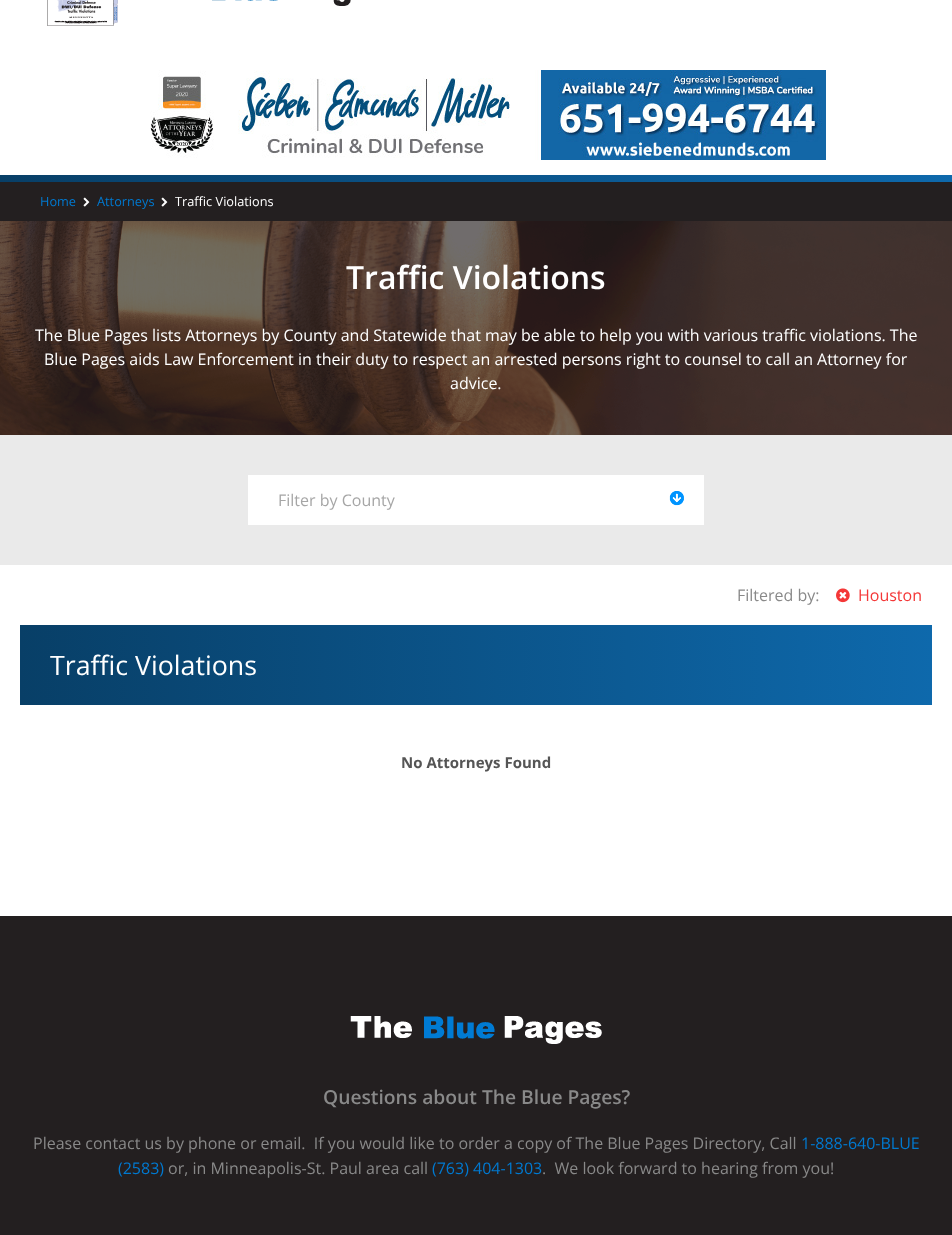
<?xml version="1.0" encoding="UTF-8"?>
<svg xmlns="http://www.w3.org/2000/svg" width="952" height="1235">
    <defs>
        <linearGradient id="g1" gradientUnits="userSpaceOnUse" x1="0" y1="179" x2="952" y2="178"><stop offset="0" stop-color="#083F67"/><stop offset="1" stop-color="#0E69AC"/></linearGradient>
        <linearGradient id="g2" gradientUnits="userSpaceOnUse" x1="20" y1="665" x2="932" y2="665"><stop offset="0" stop-color="#083F67"/><stop offset="1" stop-color="#0E69AC"/></linearGradient>
    </defs>
    <rect width="100%" height="100%" fill="#FFFFFF"/>
    <image x="47" y="0" width="304" height="26" href="img_01.png"/>
    <image x="150" y="70" width="676" height="90" href="img_02.png"/>
    <rect x="0" y="175" width="952" height="7" fill="url(#g1)"/>
    <rect x="0" y="182" width="952" height="39" fill="#231F20"/>
    <text x="40" y="206" font-family="Open Sans" font-size="12.75" fill="#0079D0">Home</text>
    <image x="83" y="197" width="7" height="10" href="img_03.png"/>
    <text x="97" y="206" font-family="Open Sans" font-size="12.75" fill="#0079D0">Attorneys</text>
    <image x="161" y="197" width="7" height="10" href="img_03.png"/>
    <text x="175" y="206" font-family="Open Sans" font-size="12.75" fill="#FFFFFF">Traffic Violations</text>
    <image x="0" y="221" width="952" height="214" href="img_04.png"/>
    <text x="346" y="289" font-family="Open Sans" font-size="32" font-weight="600" fill="#FFFFFF">Traffic Violations</text>
    <text x="35" y="341" font-family="Open Sans" font-size="16" fill="#FFFFFF">The Blue Pages lists Attorneys by County and Statewide that may be able to help you with various traffic violations. The</text>
    <text x="44" y="365" font-family="Open Sans" font-size="16" fill="#FFFFFF">Blue Pages aids Law Enforcement in their duty to respect an arrested persons right to counsel to call an Attorney for</text>
    <text x="450" y="389" font-family="Open Sans" font-size="16" fill="#FFFFFF">advice.</text>
    <rect x="0" y="435" width="952" height="130" fill="#EAEAEA"/>
    <rect x="248" y="475" width="456" height="50" fill="#FFFFFF"/>
    <text x="278" y="506" font-family="Open Sans" font-size="16" fill="#A6A6A6">Filter by County</text>
    <image x="669" y="491" width="15" height="15" href="img_05.png"/>
    <text x="737" y="601" font-family="Open Sans" font-size="16" fill="#898989">Filtered by:</text>
    <image x="836" y="588" width="14" height="15" href="img_06.png"/>
    <text x="858" y="601" font-family="Open Sans" font-size="16" fill="#F43737">Houston</text>
    <rect x="20" y="625" width="912" height="80" fill="url(#g2)"/>
    <text x="50" y="675" font-family="Open Sans" font-size="26.75" fill="#FFFFFF">Traffic Violations</text>
    <text x="401" y="768" font-family="Open Sans" font-size="15" font-weight="700" fill="#555555">No Attorneys Found</text>
    <rect x="0" y="916" width="952" height="319" fill="#231F20"/>
    <image x="350" y="1016" width="252" height="28" href="img_07.png"/>
    <text x="323" y="1104" font-family="Open Sans" font-size="19.25" font-weight="600" fill="#898989">Questions about The Blue Pages?</text>
    <text x="33" y="1149" font-family="Open Sans" font-size="16" fill="#898989" xml:space="preserve">Please contact us by phone or email.  If you would like to order a copy of The Blue Pages Directory, Call</text>
    <text x="801" y="1149" font-family="Open Sans" font-size="16" fill="#0079D0">1-888-640-BLUE</text>
    <text x="118" y="1174" font-family="Open Sans" font-size="16" fill="#0079D0">(2583)</text>
    <text x="168" y="1174" font-family="Open Sans" font-size="16" fill="#898989">or, in Minneapolis-St. Paul area call</text>
    <text x="432" y="1174" font-family="Open Sans" font-size="16" fill="#0079D0">(763) 404-1303</text>
    <text x="542" y="1174" font-family="Open Sans" font-size="16" fill="#898989" xml:space="preserve">.  We look forward to hearing from you!</text>
</svg>
